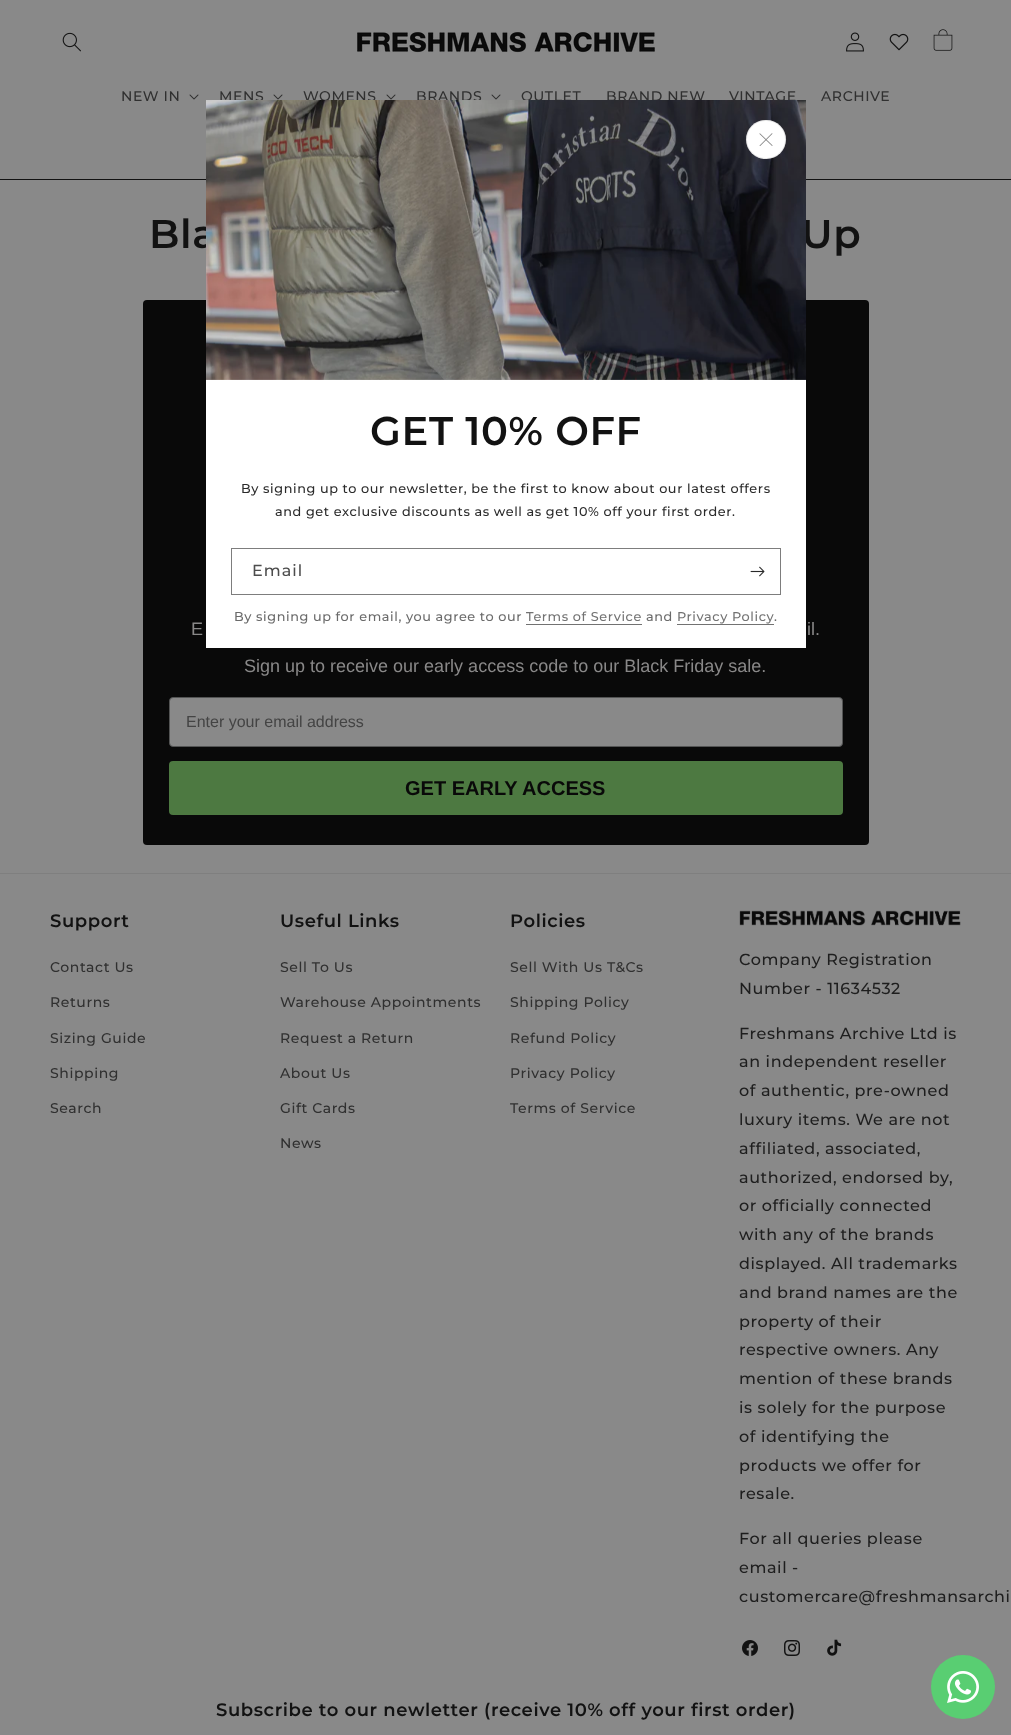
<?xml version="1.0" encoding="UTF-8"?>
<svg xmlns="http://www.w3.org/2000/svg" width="1011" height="1735">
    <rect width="100%" height="100%" fill="#898989"/>
    <rect x="0" y="179" width="1011" height="1" fill="#121212"/>
    <image x="62" y="32" width="19" height="20" href="img_01.png"/>
    <image x="357" y="32" width="298" height="21" href="img_02.png"/>
    <image x="846" y="32" width="18" height="20" href="img_03.png"/>
    <image x="889" y="33" width="20" height="18" href="img_04.png"/>
    <image x="933" y="29" width="20" height="22" href="img_05.png"/>
    <text x="121" y="101" font-family="Montserrat" font-size="14" font-weight="500" letter-spacing="0.6" fill="#303030">NEW IN</text>
    <image x="189" y="94" width="10" height="6" href="img_06.png"/>
    <text x="219" y="101" font-family="Montserrat" font-size="14" font-weight="500" letter-spacing="0.6" fill="#303030">MENS</text>
    <image x="273" y="94" width="10" height="6" href="img_06.png"/>
    <text x="303" y="101" font-family="Montserrat" font-size="14" font-weight="500" letter-spacing="0.6" fill="#303030">WOMENS</text>
    <image x="386" y="94" width="10" height="6" href="img_06.png"/>
    <text x="416" y="101" font-family="Montserrat" font-size="14" font-weight="500" letter-spacing="0.6" fill="#303030">BRANDS</text>
    <image x="491" y="94" width="10" height="6" href="img_06.png"/>
    <text x="521" y="101" font-family="Montserrat" font-size="14" font-weight="500" letter-spacing="0.6" fill="#303030">OUTLET</text>
    <text x="606" y="101" font-family="Montserrat" font-size="14" font-weight="500" letter-spacing="0.6" fill="#303030">BRAND NEW</text>
    <text x="729" y="101" font-family="Montserrat" font-size="14" font-weight="500" letter-spacing="0.6" fill="#303030">VINTAGE</text>
    <text x="821" y="101" font-family="Montserrat" font-size="14" font-weight="500" letter-spacing="0.6" fill="#303030">ARCHIVE</text>
    <text x="149" y="248" font-family="Montserrat" font-size="40" font-weight="600" letter-spacing="0.6" fill="#121212">Bla</text>
    <text x="801" y="248" font-family="Montserrat" font-size="40" font-weight="600" letter-spacing="0.6" fill="#121212">Up</text>
    <rect x="143" y="300" width="726" height="545" rx="4" fill="#090909"/>
    <text x="191" y="635" font-family="Liberation Sans" font-size="18" fill="#898888">E</text>
    <text x="807" y="635" font-family="Liberation Sans" font-size="18" fill="#898888">il.</text>
    <text x="244" y="672" font-family="Liberation Sans" font-size="18" fill="#898888">Sign up to receive our early access code to our Black Friday sale.</text>
    <rect x="169.5" y="697.5" width="673" height="49" rx="3.5" fill="#898989" stroke="#535454"/>
    <text x="186" y="727" font-family="Liberation Sans" font-size="16" fill="#444444">Enter your email address</text>
    <rect x="169" y="761" width="674" height="54" rx="4" fill="#4D7941"/>
    <text x="405" y="795" font-family="Liberation Sans" font-size="20" font-weight="700" fill="#090909">GET EARLY ACCESS</text>
    <rect x="206" y="379" width="600" height="269" fill="#FFFFFF"/>
    <image x="206" y="100" width="600" height="280" href="img_07.png"/>
    <rect x="746" y="120" width="40" height="39" rx="19.5" fill="#FFFFFF"/>
    <rect x="746.5" y="120.5" width="39" height="38" rx="19" fill="none" stroke="#121212" stroke-opacity="0.1"/>
    <image x="759" y="133" width="14" height="13" href="img_08.png"/>
    <text x="370" y="445" font-family="Montserrat" font-size="40" font-weight="600" letter-spacing="0.6" fill="#121212">GET 10% OFF</text>
    <text x="241" y="493" font-family="Montserrat" font-size="12.8" font-weight="500" letter-spacing="0.6" fill="#2A2A2A">By signing up to our newsletter, be the first to know about our latest offers</text>
    <text x="275" y="516" font-family="Montserrat" font-size="12.8" font-weight="500" letter-spacing="0.6" fill="#2A2A2A">and get exclusive discounts as well as get 10% off your first order.</text>
    <rect x="231.5" y="548.5" width="549" height="46" fill="none" stroke="#7D7D7D"/>
    <text x="252" y="576" font-family="Montserrat" font-size="16" font-weight="500" letter-spacing="1" fill="#4D4D4D">Email</text>
    <image x="750" y="566" width="15" height="11" href="img_09.png"/>
    <text x="234" y="621" font-family="Montserrat" font-size="12.8" font-weight="500" letter-spacing="0.6" fill="#6A6A6A">By signing up for email, you agree to our</text>
    <text x="526" y="621" font-family="Montserrat" font-size="12.8" font-weight="500" letter-spacing="0.6" fill="#727272">Terms of Service</text>
    <rect x="526" y="624" width="116" height="1" fill="#727272"/>
    <text x="646" y="621" font-family="Montserrat" font-size="12.8" font-weight="500" letter-spacing="0.6" fill="#6A6A6A">and</text>
    <text x="677" y="621" font-family="Montserrat" font-size="12.8" font-weight="500" letter-spacing="0.6" fill="#727272">Privacy Policy</text>
    <rect x="677" y="624" width="97" height="1" fill="#727272"/>
    <text x="774" y="621" font-family="Montserrat" font-size="12.8" font-weight="500" letter-spacing="0.6" fill="#6A6A6A">.</text>
    <rect x="0" y="873" width="1011" height="1" fill="#7F7F7F"/>
    <text x="50" y="927" font-family="Montserrat" font-size="18" font-weight="600" letter-spacing="0.6" fill="#121212">Support</text>
    <text x="50" y="972" font-family="Montserrat" font-size="14" font-weight="500" letter-spacing="0.6" fill="#303030">Contact Us</text>
    <text x="50" y="1007" font-family="Montserrat" font-size="14" font-weight="500" letter-spacing="0.6" fill="#303030">Returns</text>
    <text x="50" y="1043" font-family="Montserrat" font-size="14" font-weight="500" letter-spacing="0.6" fill="#303030">Sizing Guide</text>
    <text x="50" y="1078" font-family="Montserrat" font-size="14" font-weight="500" letter-spacing="0.6" fill="#303030">Shipping</text>
    <text x="50" y="1113" font-family="Montserrat" font-size="14" font-weight="500" letter-spacing="0.6" fill="#303030">Search</text>
    <text x="280" y="927" font-family="Montserrat" font-size="18" font-weight="600" letter-spacing="0.6" fill="#121212">Useful Links</text>
    <text x="280" y="972" font-family="Montserrat" font-size="14" font-weight="500" letter-spacing="0.6" fill="#303030">Sell To Us</text>
    <text x="280" y="1007" font-family="Montserrat" font-size="14" font-weight="500" letter-spacing="0.6" fill="#303030">Warehouse Appointments</text>
    <text x="280" y="1043" font-family="Montserrat" font-size="14" font-weight="500" letter-spacing="0.6" fill="#303030">Request a Return</text>
    <text x="280" y="1078" font-family="Montserrat" font-size="14" font-weight="500" letter-spacing="0.6" fill="#303030">About Us</text>
    <text x="280" y="1113" font-family="Montserrat" font-size="14" font-weight="500" letter-spacing="0.6" fill="#303030">Gift Cards</text>
    <text x="280" y="1148" font-family="Montserrat" font-size="14" font-weight="500" letter-spacing="0.6" fill="#303030">News</text>
    <text x="510" y="927" font-family="Montserrat" font-size="18" font-weight="600" letter-spacing="0.6" fill="#121212">Policies</text>
    <text x="510" y="972" font-family="Montserrat" font-size="14" font-weight="500" letter-spacing="0.6" fill="#303030">Sell With Us T&amp;Cs</text>
    <text x="510" y="1007" font-family="Montserrat" font-size="14" font-weight="500" letter-spacing="0.6" fill="#303030">Shipping Policy</text>
    <text x="510" y="1043" font-family="Montserrat" font-size="14" font-weight="500" letter-spacing="0.6" fill="#303030">Refund Policy</text>
    <text x="510" y="1078" font-family="Montserrat" font-size="14" font-weight="500" letter-spacing="0.6" fill="#303030">Privacy Policy</text>
    <text x="510" y="1113" font-family="Montserrat" font-size="14" font-weight="500" letter-spacing="0.6" fill="#303030">Terms of Service</text>
    <image x="739" y="910" width="222" height="16" href="img_10.png"/>
    <text font-family="Montserrat" font-size="16" font-weight="500" letter-spacing="0.6" fill="#1E1E1E">
        <tspan x="739" y="965">Company Registration</tspan>
        <tspan x="739" y="994">Number - 11634532</tspan>
    </text>
    <text font-family="Montserrat" font-size="16" font-weight="500" letter-spacing="0.6" fill="#1E1E1E">
        <tspan x="739" y="1039">Freshmans Archive Ltd is</tspan>
        <tspan x="739" y="1067">an independent reseller</tspan>
        <tspan x="739" y="1096">of authentic, pre-owned</tspan>
        <tspan x="739" y="1125">luxury items. We are not</tspan>
        <tspan x="739" y="1154">affiliated, associated,</tspan>
        <tspan x="739" y="1183">authorized, endorsed by,</tspan>
        <tspan x="739" y="1211">or officially connected</tspan>
        <tspan x="739" y="1240">with any of the brands</tspan>
        <tspan x="739" y="1269">displayed. All trademarks</tspan>
        <tspan x="739" y="1298">and brand names are the</tspan>
        <tspan x="739" y="1327">property of their</tspan>
        <tspan x="739" y="1355">respective owners. Any</tspan>
        <tspan x="739" y="1384">mention of these brands</tspan>
        <tspan x="739" y="1413">is solely for the purpose</tspan>
        <tspan x="739" y="1442">of identifying the</tspan>
        <tspan x="739" y="1471">products we offer for</tspan>
        <tspan x="739" y="1499">resale.</tspan>
    </text>
    <text font-family="Montserrat" font-size="16" font-weight="500" letter-spacing="0.6" fill="#1E1E1E">
        <tspan x="739" y="1544">For all queries please</tspan>
        <tspan x="739" y="1573">email -</tspan>
        <tspan x="739" y="1602">customercare@freshmansarchi</tspan>
    </text>
    <image x="742" y="1640" width="16" height="16" href="img_11.png"/>
    <image x="784" y="1640" width="16" height="16" href="img_12.png"/>
    <image x="827" y="1639" width="15" height="17" href="img_13.png"/>
    <text x="216" y="1716" font-family="Montserrat" font-size="18" font-weight="600" letter-spacing="0.6" fill="#121212">Subscribe to our newletter (receive 10% off your first order)</text>
    <circle cx="963" cy="1687" r="32" fill="#59CE72"/>
    <image x="947" y="1671" width="32" height="32" href="img_14.png"/>
</svg>
